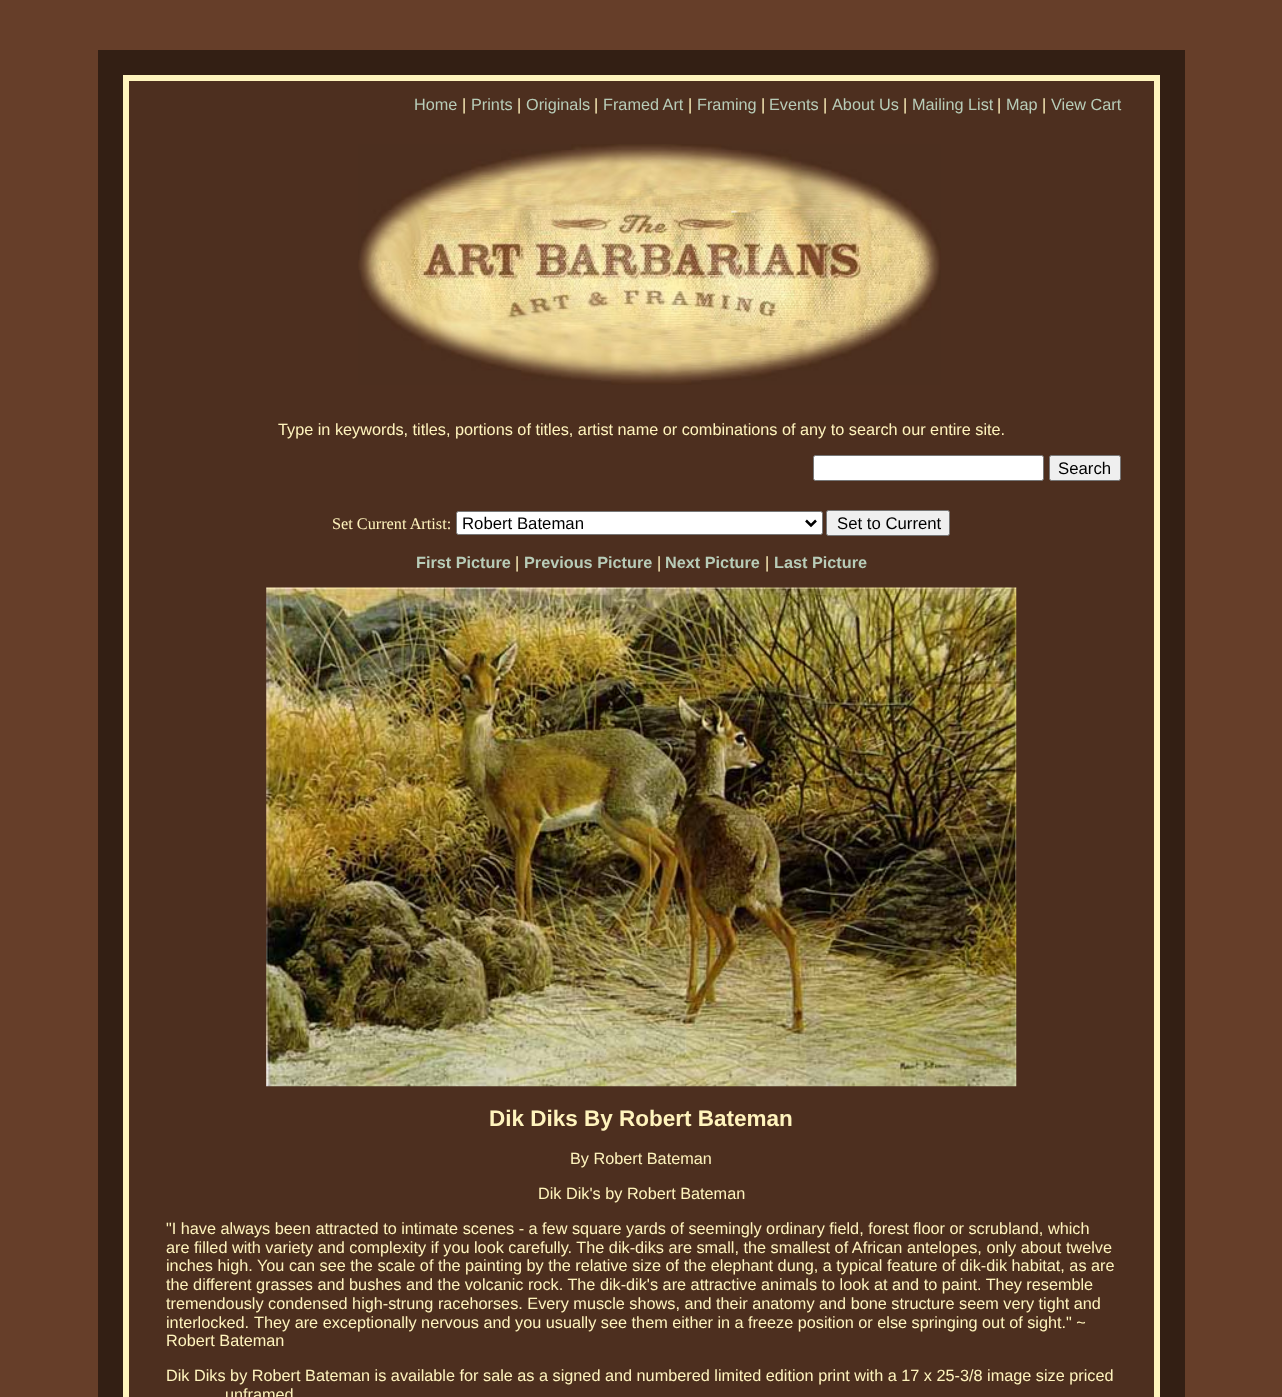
<?xml version="1.0" encoding="UTF-8"?>
<svg xmlns="http://www.w3.org/2000/svg" width="1282" height="1397">
    <rect width="100%" height="100%" fill="#663E29"/>
    <rect x="98" y="50" width="1087" height="1347" fill="#331F14"/>
    <rect x="126" y="78" width="1031" height="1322" fill="#4D2F1F" stroke="#FFF4BD" stroke-width="6"/>
    <text x="414" y="110" font-family="Liberation Sans" font-size="16.25" fill="#B8CCB8">Home</text>
    <text x="462" y="110" font-family="Liberation Sans" font-size="16.25" fill="#FFF4BD">|</text>
    <text x="471" y="110" font-family="Liberation Sans" font-size="16.25" fill="#B8CCB8">Prints</text>
    <text x="517" y="110" font-family="Liberation Sans" font-size="16.25" fill="#FFF4BD">|</text>
    <text x="526" y="110" font-family="Liberation Sans" font-size="16.25" fill="#B8CCB8">Originals</text>
    <text x="594" y="110" font-family="Liberation Sans" font-size="16.25" fill="#FFF4BD">|</text>
    <text x="603" y="110" font-family="Liberation Sans" font-size="16.25" fill="#B8CCB8">Framed Art</text>
    <text x="688" y="110" font-family="Liberation Sans" font-size="16.25" fill="#FFF4BD">|</text>
    <text x="697" y="110" font-family="Liberation Sans" font-size="16.25" fill="#B8CCB8">Framing</text>
    <text x="761" y="110" font-family="Liberation Sans" font-size="16.25" fill="#FFF4BD">|</text>
    <text x="769" y="110" font-family="Liberation Sans" font-size="16.25" fill="#B8CCB8">Events</text>
    <text x="823" y="110" font-family="Liberation Sans" font-size="16.25" fill="#FFF4BD">|</text>
    <text x="832" y="110" font-family="Liberation Sans" font-size="16.25" fill="#B8CCB8">About Us</text>
    <text x="903" y="110" font-family="Liberation Sans" font-size="16.25" fill="#FFF4BD">|</text>
    <text x="912" y="110" font-family="Liberation Sans" font-size="16.25" fill="#B8CCB8">Mailing List</text>
    <text x="997" y="110" font-family="Liberation Sans" font-size="16.25" fill="#FFF4BD">|</text>
    <text x="1006" y="110" font-family="Liberation Sans" font-size="16.25" fill="#B8CCB8">Map</text>
    <text x="1042" y="110" font-family="Liberation Sans" font-size="16.25" fill="#FFF4BD">|</text>
    <text x="1051" y="110" font-family="Liberation Sans" font-size="16.25" fill="#B8CCB8">View Cart</text>
    <image x="358" y="144" width="583" height="241" href="img_01.png"/>
    <text x="278" y="435" font-family="Liberation Sans" font-size="16.25" fill="#FFF4BD">Type in keywords, titles, portions of titles, artist name or combinations of any to search our entire site.</text>
    <rect x="813.5" y="455.5" width="230" height="25" rx="2" fill="#FFFFFF" stroke="#767676"/>
    <rect x="1049.5" y="455.5" width="71" height="25" rx="2" fill="#EFEFEF" stroke="#767676"/>
    <text x="1058" y="474" font-family="Liberation Sans" font-size="16.75" fill="#000000">Search</text>
    <text x="332" y="529" font-family="Liberation Serif" font-size="16.25" fill="#FFF4BD">Set Current Artist:</text>
    <rect x="456.5" y="511.5" width="366" height="23" rx="2" fill="#FFFFFF" stroke="#767676"/>
    <path d="M 806 520.5 L 811 525.5 L 816 520.5" fill="none" stroke="#000000" stroke-width="2.5"/>
    <text x="462" y="529" font-family="Liberation Sans" font-size="16.75" fill="#000000">Robert Bateman</text>
    <rect x="826.5" y="510.5" width="123" height="25" rx="2" fill="#EFEFEF" stroke="#767676"/>
    <text x="837" y="529" font-family="Liberation Sans" font-size="16.75" fill="#000000">Set to Current</text>
    <text x="416" y="568" font-family="Liberation Sans" font-size="16.25" font-weight="700" fill="#B8CCB8">First Picture</text>
    <text x="515" y="568" font-family="Liberation Sans" font-size="16.25" fill="#FFF4BD">|</text>
    <text x="524" y="568" font-family="Liberation Sans" font-size="16.25" font-weight="700" fill="#B8CCB8">Previous Picture</text>
    <text x="657" y="568" font-family="Liberation Sans" font-size="16.25" fill="#FFF4BD">|</text>
    <text x="665" y="568" font-family="Liberation Sans" font-size="16.25" font-weight="700" fill="#B8CCB8">Next Picture</text>
    <text x="765" y="568" font-family="Liberation Sans" font-size="16.25" fill="#FFF4BD">|</text>
    <text x="774" y="568" font-family="Liberation Sans" font-size="16.25" font-weight="700" fill="#B8CCB8">Last Picture</text>
    <image x="266" y="587" width="751" height="500" href="img_02.png"/>
    <text x="489" y="1126" font-family="Liberation Sans" font-size="22.5" font-weight="700" fill="#FFF4BD">Dik Diks By Robert Bateman</text>
    <text x="570" y="1164" font-family="Liberation Sans" font-size="16.25" fill="#FFF4BD">By Robert Bateman</text>
    <text x="538" y="1199" font-family="Liberation Sans" font-size="16.25" fill="#FFF4BD">Dik Dik's by Robert Bateman</text>
    <text font-family="Liberation Sans" font-size="16.25" fill="#FFF4BD">
        <tspan x="166" y="1234">"I have always been attracted to intimate scenes - a few square yards of seemingly ordinary field, forest floor or scrubland, which</tspan>
        <tspan x="166" y="1253">are filled with variety and complexity if you look carefully. The dik-diks are small, the smallest of African antelopes, only about twelve</tspan>
        <tspan x="166" y="1271">inches high. You can see the scale of the painting by the relative size of the elephant dung, a typical feature of dik-dik habitat, as are</tspan>
        <tspan x="166" y="1290">the different grasses and bushes and the volcanic rock. The dik-dik's are attractive animals to look at and to paint. They resemble</tspan>
        <tspan x="166" y="1309">tremendously condensed high-strung racehorses. Every muscle shows, and their anatomy and bone structure seem very tight and</tspan>
        <tspan x="166" y="1328">interlocked.</tspan>
    </text>
    <text x="254" y="1328" font-family="Liberation Sans" font-size="16.25" fill="#FFF4BD">They are exceptionally nervous and you usually see them either in a freeze position or else springing out of sight." ~</text>
    <text x="166" y="1346" font-family="Liberation Sans" font-size="16.25" fill="#FFF4BD">Robert Bateman</text>
    <text x="166" y="1381" font-family="Liberation Sans" font-size="16.25" fill="#FFF4BD">Dik Diks by Robert Bateman is available for sale as a signed and numbered limited edition print with a 17 x 25-3/8 image size priced</text>
    <text x="225" y="1400" font-family="Liberation Sans" font-size="16.25" fill="#FFF4BD">unframed</text>
</svg>
